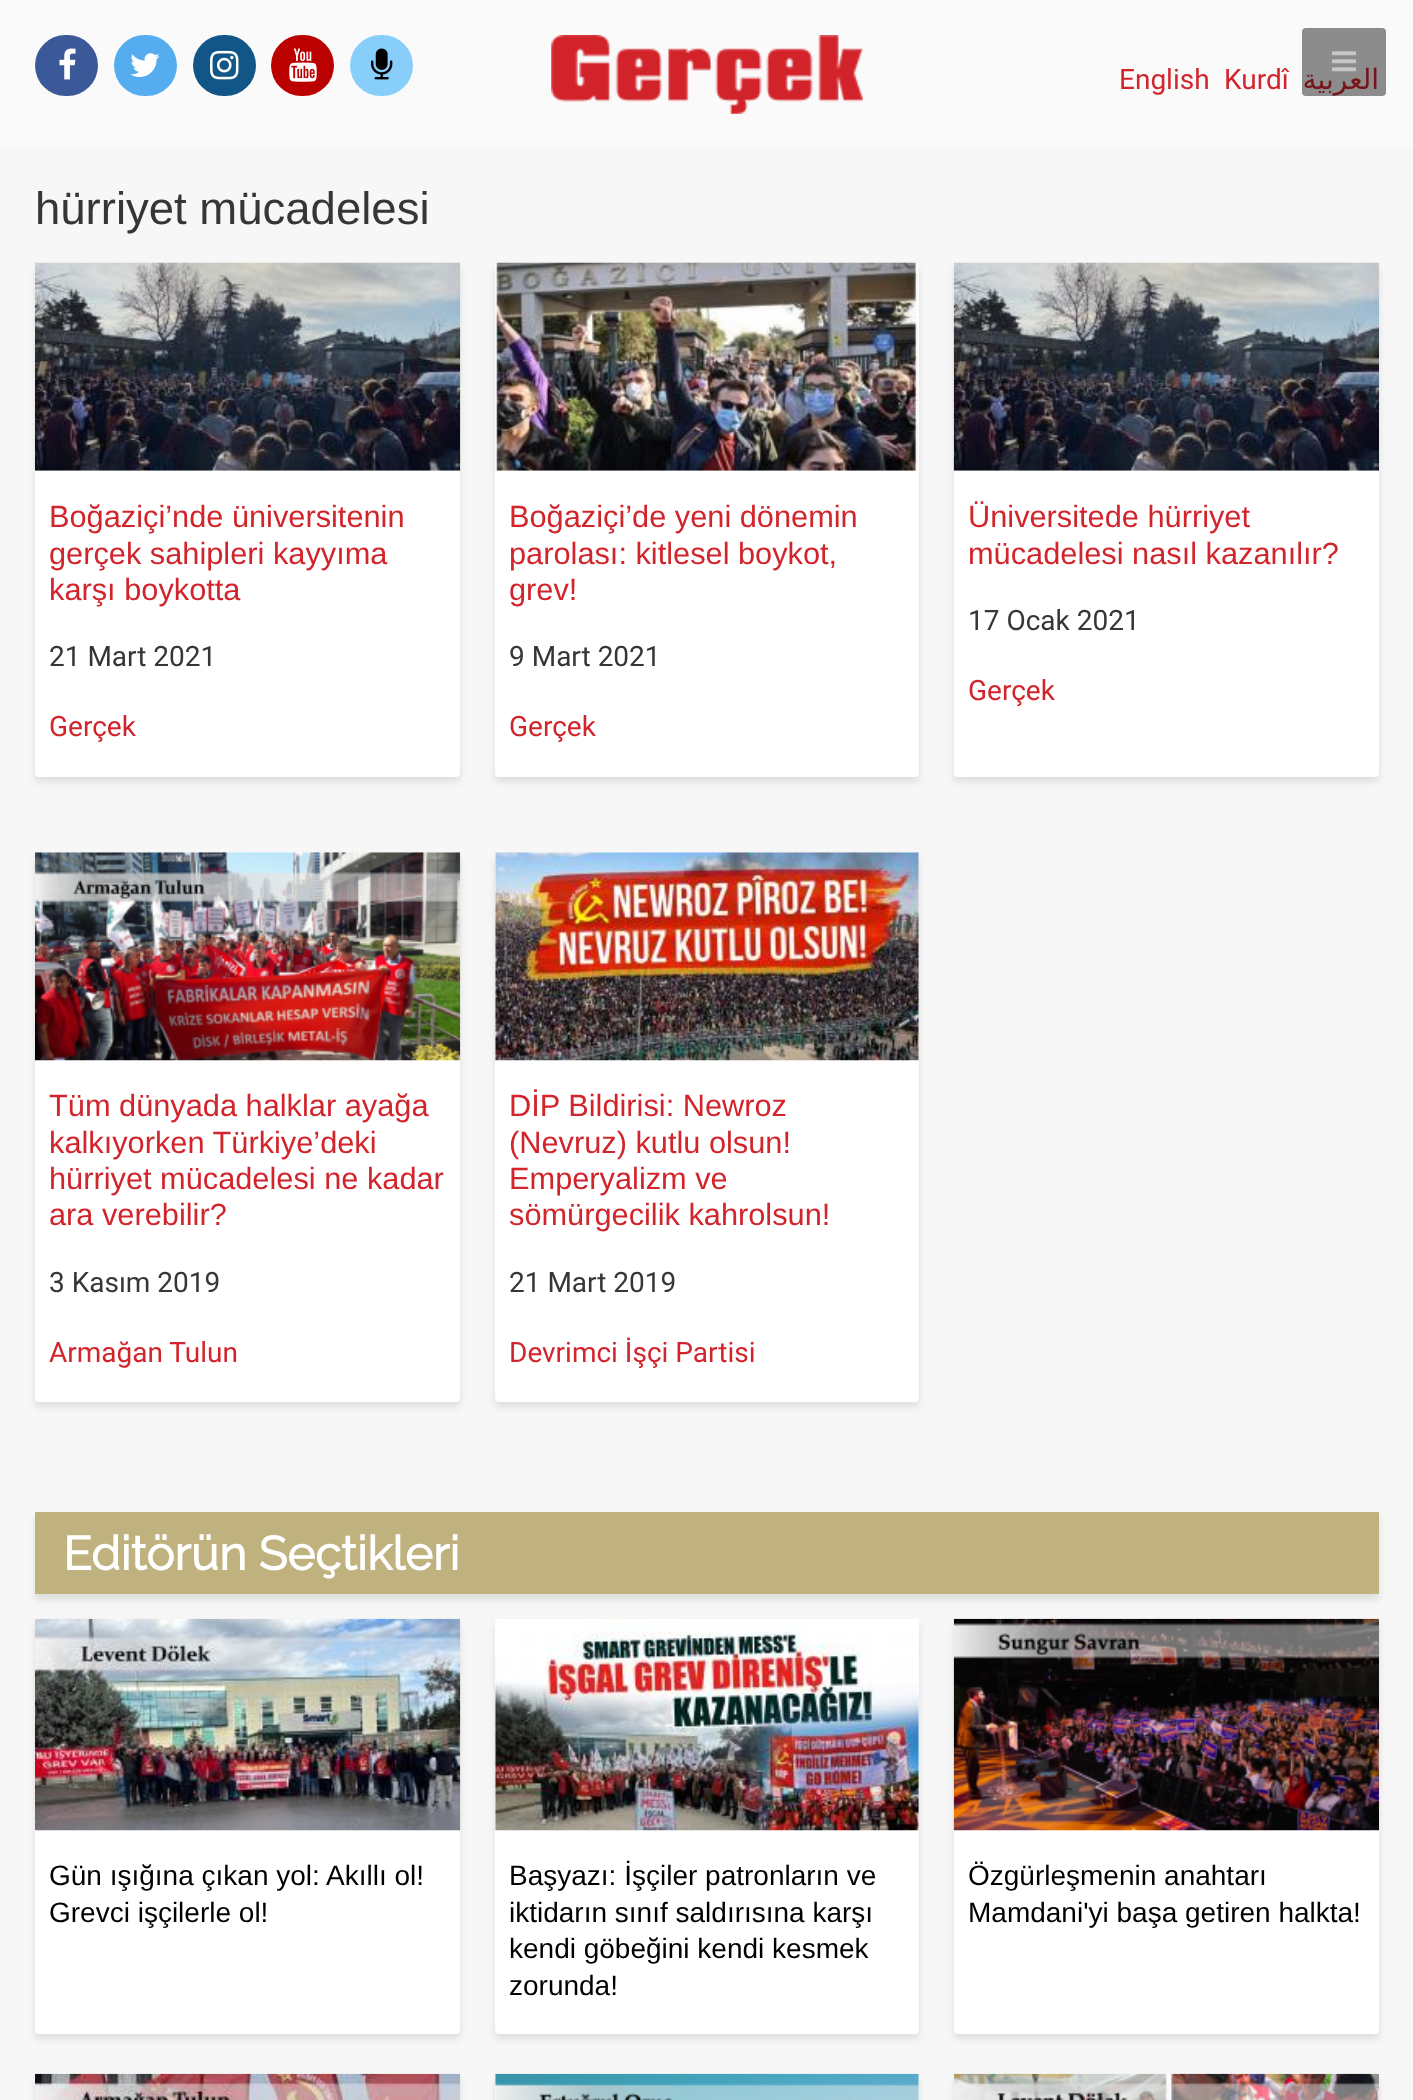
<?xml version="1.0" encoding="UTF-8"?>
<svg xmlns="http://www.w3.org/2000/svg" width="1413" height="2100">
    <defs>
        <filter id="blur1" x="-50%" y="-200%" width="200%" height="500%"><feGaussianBlur stdDeviation="3.5"/></filter>
    </defs>
    <rect width="100%" height="100%" fill="#F7F7F7"/>
    <rect x="0" y="0" width="1413" height="149" fill="#FAFAFA"/>
    <text x="1379" y="89" font-family="DejaVu Sans" font-size="28" direction="rtl" fill="#D2242B">العربية</text>
    <rect x="1302" y="28" width="84" height="68" rx="4" fill="#000000" fill-opacity="0.44"/>
    <image x="1332" y="51" width="24" height="21" href="img_01.png"/>
    <rect x="35" y="35" width="63" height="61" rx="30.5" fill="#3B5998"/>
    <image x="59" y="48" width="17" height="32" href="img_02.png"/>
    <rect x="114" y="35" width="63" height="61" rx="30.5" fill="#55ACEE"/>
    <image x="130" y="53" width="30" height="24" href="img_03.png"/>
    <rect x="193" y="35" width="63" height="61" rx="30.5" fill="#125688"/>
    <image x="210" y="50" width="29" height="30" href="img_04.png"/>
    <rect x="271" y="35" width="63" height="61" rx="30.5" fill="#BB0000"/>
    <image x="289" y="48" width="28" height="34" href="img_05.png"/>
    <rect x="350" y="35" width="63" height="61" rx="30.5" fill="#87CEFA"/>
    <image x="371" y="48" width="22" height="32" href="img_06.png"/>
    <image x="551" y="35" width="312" height="79" href="img_07.png"/>
    <text x="1119" y="89" font-family="Roboto" font-size="28" fill="#D2242B">English</text>
    <text x="1224" y="89" font-family="Roboto" font-size="28" fill="#D2242B">Kurdî</text>
    <text x="35" y="224" font-family="Liberation Sans" font-size="45.5" fill="#363636">hürriyet mücadelesi</text>
    <rect x="35" y="268" width="425" height="514" rx="4" fill="#000000" fill-opacity="0.1" filter="url(#blur1)"/>
    <rect x="35" y="263" width="425" height="514" rx="4" fill="#FFFFFF"/>
    <image x="35" y="262" width="426" height="209" href="img_08.png"/>
    <text font-family="Liberation Sans" font-size="30.75" fill="#D2242B">
        <tspan x="49" y="527">Boğaziçi’nde üniversitenin</tspan>
        <tspan x="49" y="564">gerçek sahipleri kayyıma</tspan>
        <tspan x="49" y="600">karşı boykotta</tspan>
    </text>
    <text x="49" y="666" font-family="Roboto" font-size="28" fill="#363636">21 Mart 2021</text>
    <text x="49" y="736" font-family="Roboto" font-size="28" fill="#D2242B">Gerçek</text>
    <rect x="495" y="268" width="424" height="514" rx="4" fill="#000000" fill-opacity="0.1" filter="url(#blur1)"/>
    <rect x="495" y="263" width="424" height="514" rx="4" fill="#FFFFFF"/>
    <image x="495" y="262" width="424" height="209" href="img_09.png"/>
    <text font-family="Liberation Sans" font-size="30.75" fill="#D2242B">
        <tspan x="509" y="527">Boğaziçi’de yeni dönemin</tspan>
        <tspan x="509" y="564">parolası: kitlesel boykot,</tspan>
        <tspan x="509" y="600">grev!</tspan>
    </text>
    <text x="509" y="666" font-family="Roboto" font-size="28" fill="#363636">9 Mart 2021</text>
    <text x="509" y="736" font-family="Roboto" font-size="28" fill="#D2242B">Gerçek</text>
    <rect x="954" y="268" width="425" height="514" rx="4" fill="#000000" fill-opacity="0.1" filter="url(#blur1)"/>
    <rect x="954" y="263" width="425" height="514" rx="4" fill="#FFFFFF"/>
    <image x="953" y="262" width="426" height="209" href="img_10.png"/>
    <text font-family="Liberation Sans" font-size="30.75" fill="#D2242B">
        <tspan x="968" y="527">Üniversitede hürriyet</tspan>
        <tspan x="968" y="564">mücadelesi nasıl kazanılır?</tspan>
    </text>
    <text x="968" y="630" font-family="Roboto" font-size="28" fill="#363636">17 Ocak 2021</text>
    <text x="968" y="700" font-family="Roboto" font-size="28" fill="#D2242B">Gerçek</text>
    <rect x="35" y="858" width="425" height="549" rx="4" fill="#000000" fill-opacity="0.1" filter="url(#blur1)"/>
    <rect x="35" y="852" width="425" height="550" rx="4" fill="#FFFFFF"/>
    <image x="35" y="852" width="426" height="209" href="img_11.png"/>
    <text font-family="Liberation Sans" font-size="30.75" fill="#D2242B">
        <tspan x="49" y="1116">Tüm dünyada halklar ayağa</tspan>
        <tspan x="49" y="1153">kalkıyorken Türkiye’deki</tspan>
        <tspan x="49" y="1189">hürriyet mücadelesi ne kadar</tspan>
        <tspan x="49" y="1225">ara verebilir?</tspan>
    </text>
    <text x="49" y="1292" font-family="Roboto" font-size="28" fill="#363636">3 Kasım 2019</text>
    <text x="49" y="1362" font-family="Roboto" font-size="28" fill="#D2242B">Armağan Tulun</text>
    <rect x="495" y="858" width="424" height="549" rx="4" fill="#000000" fill-opacity="0.1" filter="url(#blur1)"/>
    <rect x="495" y="852" width="424" height="550" rx="4" fill="#FFFFFF"/>
    <image x="495" y="852" width="424" height="209" href="img_12.png"/>
    <text font-family="Liberation Sans" font-size="30.75" fill="#D2242B">
        <tspan x="509" y="1116">DİP Bildirisi: Newroz</tspan>
        <tspan x="509" y="1153">(Nevruz) kutlu olsun!</tspan>
        <tspan x="509" y="1189">Emperyalizm ve</tspan>
        <tspan x="509" y="1225">sömürgecilik kahrolsun!</tspan>
    </text>
    <text x="509" y="1292" font-family="Roboto" font-size="28" fill="#363636">21 Mart 2019</text>
    <text x="509" y="1362" font-family="Roboto" font-size="28" fill="#D2242B">Devrimci İşçi Partisi</text>
    <rect x="35" y="1517" width="1344" height="83" fill="#000000" fill-opacity="0.1" filter="url(#blur1)"/>
    <rect x="35" y="1512" width="1344" height="82" fill="#BFB27E"/>
    <text x="63" y="1570" font-family="Raleway" font-size="47.25" font-weight="700" fill="#FFFFFF">Editörün Seçtikleri</text>
    <rect x="35" y="1624" width="425" height="415" rx="4" fill="#000000" fill-opacity="0.1" filter="url(#blur1)"/>
    <rect x="35" y="1619" width="425" height="415" rx="4" fill="#FFFFFF"/>
    <image x="35" y="1618" width="426" height="213" href="img_13.png"/>
    <text font-family="Liberation Sans" font-size="28" fill="#000000">
        <tspan x="49" y="1885">Gün ışığına çıkan yol: Akıllı ol!</tspan>
        <tspan x="49" y="1922">Grevci işçilerle ol!</tspan>
    </text>
    <rect x="495" y="1624" width="424" height="415" rx="4" fill="#000000" fill-opacity="0.1" filter="url(#blur1)"/>
    <rect x="495" y="1619" width="424" height="415" rx="4" fill="#FFFFFF"/>
    <image x="495" y="1619" width="424" height="212" href="img_14.png"/>
    <text font-family="Liberation Sans" font-size="28" fill="#000000">
        <tspan x="509" y="1885">Başyazı: İşçiler patronların ve</tspan>
        <tspan x="509" y="1922">iktidarın sınıf saldırısına karşı</tspan>
        <tspan x="509" y="1958">kendi göbeğini kendi kesmek</tspan>
        <tspan x="509" y="1995">zorunda!</tspan>
    </text>
    <rect x="954" y="1624" width="425" height="415" rx="4" fill="#000000" fill-opacity="0.1" filter="url(#blur1)"/>
    <rect x="954" y="1619" width="425" height="415" rx="4" fill="#FFFFFF"/>
    <image x="953" y="1618" width="426" height="213" href="img_15.png"/>
    <text font-family="Liberation Sans" font-size="28" fill="#000000">
        <tspan x="968" y="1885">Özgürleşmenin anahtarı</tspan>
        <tspan x="968" y="1922">Mamdani'yi başa getiren halkta!</tspan>
    </text>
    <rect x="35" y="2079" width="425" height="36" rx="4" fill="#000000" fill-opacity="0.1" filter="url(#blur1)"/>
    <image x="35" y="2073" width="426" height="27" href="img_16.png"/>
    <rect x="495" y="2079" width="424" height="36" rx="4" fill="#000000" fill-opacity="0.1" filter="url(#blur1)"/>
    <rect x="495" y="2074" width="424" height="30" rx="4" fill="#FFFFFF"/>
    <image x="495" y="2073" width="424" height="27" href="img_17.png"/>
    <rect x="954" y="2079" width="425" height="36" rx="4" fill="#000000" fill-opacity="0.1" filter="url(#blur1)"/>
    <image x="953" y="2073" width="426" height="27" href="img_18.png"/>
</svg>
